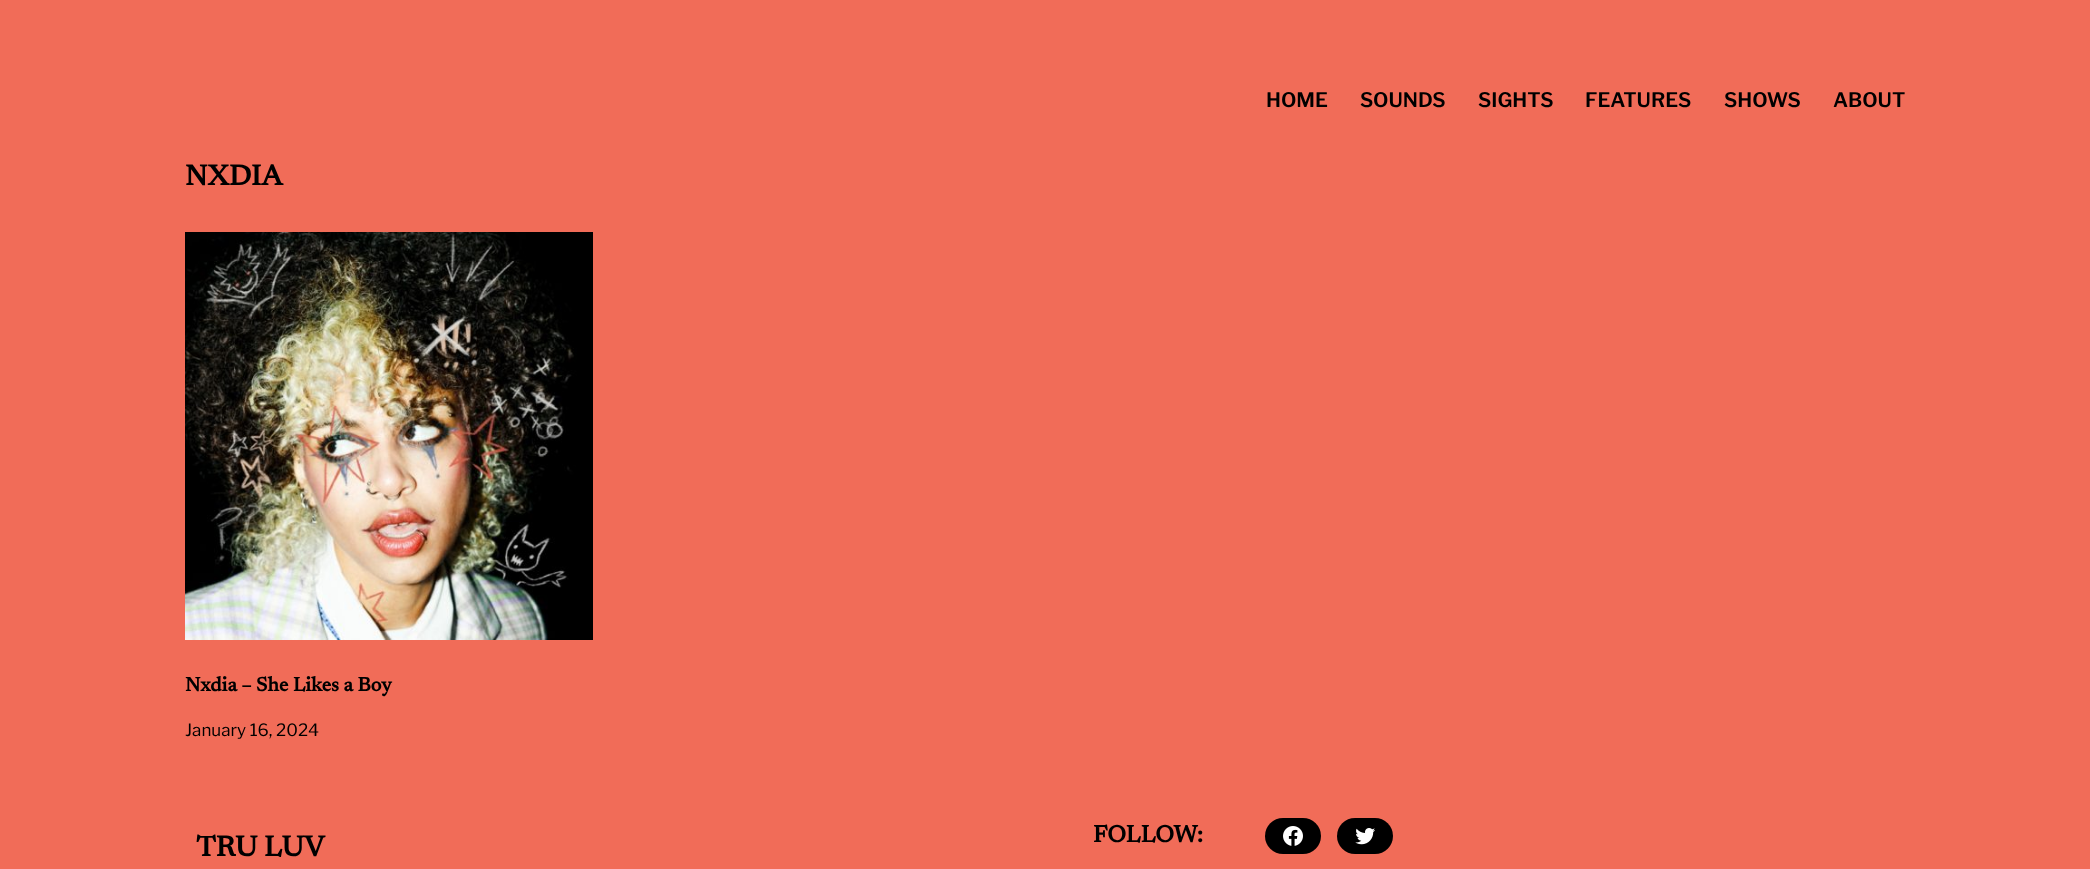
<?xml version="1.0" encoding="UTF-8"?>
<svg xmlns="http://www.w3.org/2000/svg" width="2090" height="869">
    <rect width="100%" height="100%" fill="#F16C58"/>
    <text x="1266" y="107" font-family="Libre Franklin" font-size="20" font-weight="600" fill="#000000">HOME</text>
    <text x="1360" y="107" font-family="Libre Franklin" font-size="20" font-weight="600" fill="#000000">SOUNDS</text>
    <text x="1478" y="107" font-family="Libre Franklin" font-size="20" font-weight="600" fill="#000000">SIGHTS</text>
    <text x="1585" y="107" font-family="Libre Franklin" font-size="20" font-weight="600" fill="#000000">FEATURES</text>
    <text x="1724" y="107" font-family="Libre Franklin" font-size="20" font-weight="600" fill="#000000">SHOWS</text>
    <text x="1833" y="107" font-family="Libre Franklin" font-size="20" font-weight="600" fill="#000000">ABOUT</text>
    <text x="185" y="185" font-family="Newsreader" font-size="29" font-weight="700" fill="#000000">NXDIA</text>
    <image x="185" y="232" width="408" height="408" href="img_01.png"/>
    <text x="185" y="691" font-family="Newsreader" font-size="20" font-weight="700" fill="#000000">Nxdia – She Likes a Boy</text>
    <text x="185" y="736" font-family="Libre Franklin" font-size="17" fill="#000000">January 16, 2024</text>
    <text x="196" y="856" font-family="Newsreader" font-size="29" font-weight="700" fill="#000000">TRU LUV</text>
    <text x="1093" y="842" font-family="Newsreader" font-size="24" font-weight="700" fill="#000000">FOLLOW:</text>
    <rect x="1265" y="818" width="56" height="36" rx="18" fill="#000000"/>
    <image x="1283" y="826" width="20" height="20" href="img_02.png"/>
    <rect x="1337" y="818" width="56" height="36" rx="18" fill="#000000"/>
    <image x="1355" y="828" width="20" height="17" href="img_03.png"/>
</svg>
